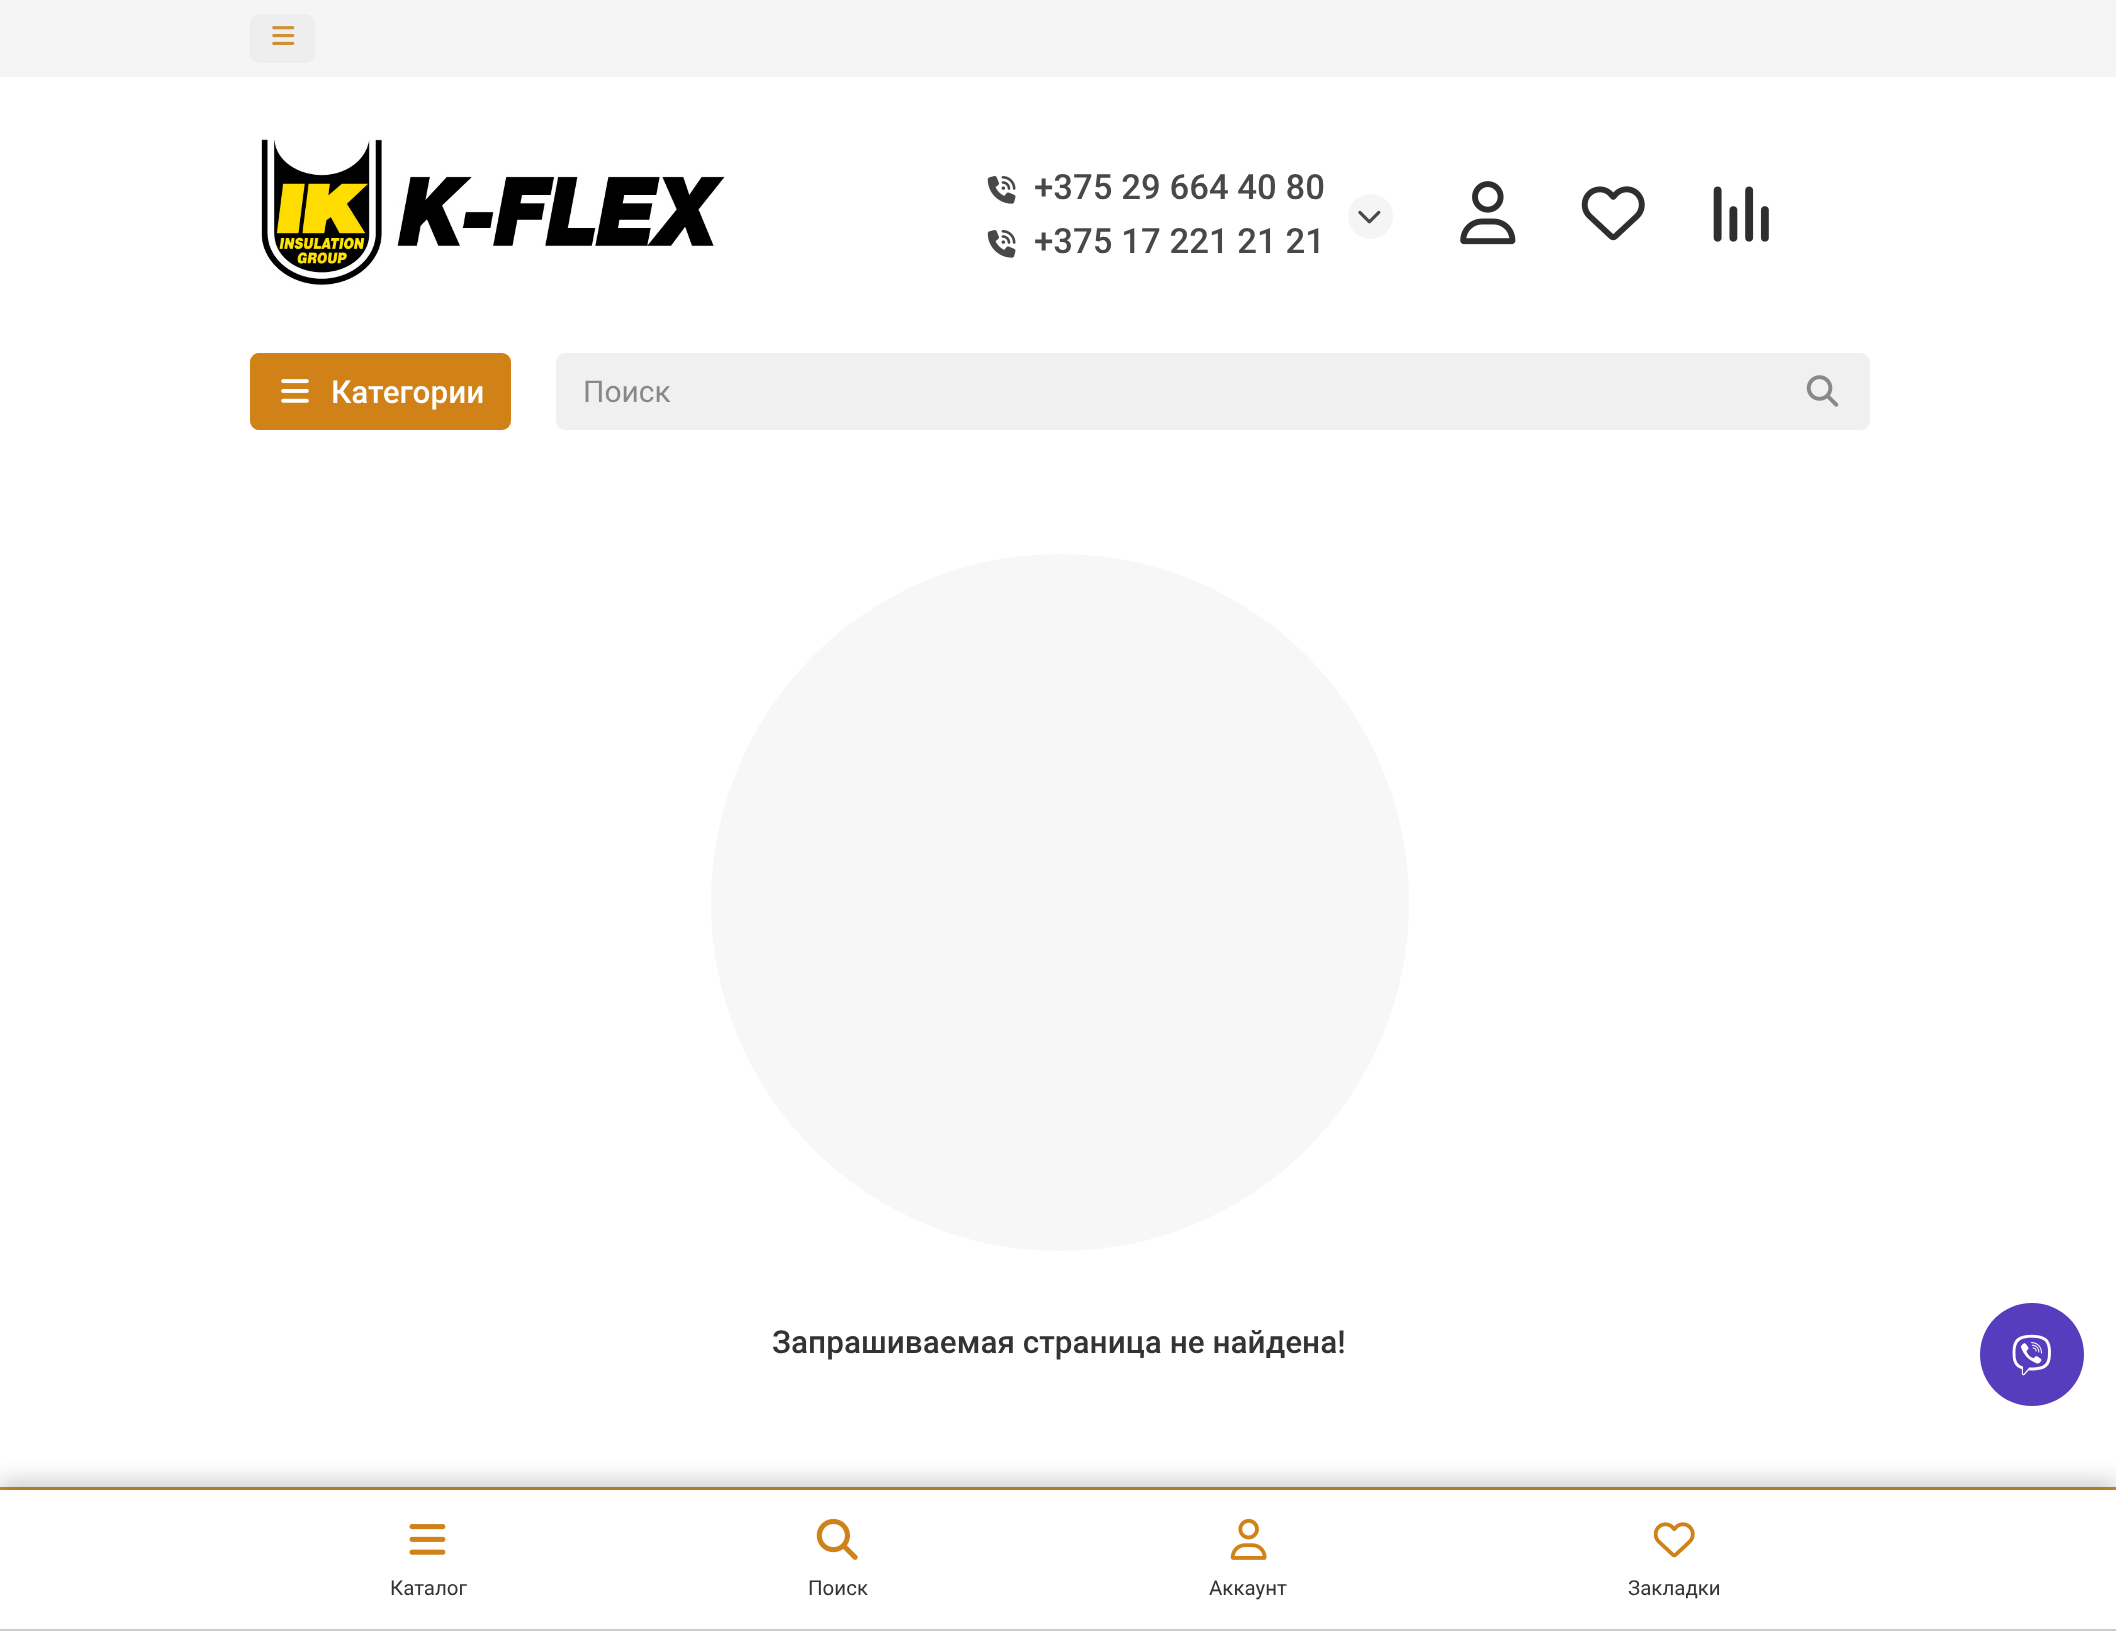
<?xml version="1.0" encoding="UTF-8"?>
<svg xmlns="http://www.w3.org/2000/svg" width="2116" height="1631">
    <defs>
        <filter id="blur1" x="-50%" y="-200%" width="200%" height="500%"><feGaussianBlur stdDeviation="11"/></filter>
    </defs>
    <rect width="100%" height="100%" fill="#FFFFFF"/>
    <rect x="0" y="0" width="2116" height="77" fill="#F5F5F5"/>
    <rect x="250" y="14" width="65" height="49" rx="9" fill="#EEEEEE"/>
    <image x="272" y="26" width="23" height="19" href="img_01.png"/>
    <image x="259" y="137" width="466" height="148" href="img_02.png"/>
    <image x="987" y="176" width="29" height="28" href="img_03.png"/>
    <text x="1034" y="199" font-family="Roboto" font-size="34.75" font-weight="500" fill="#484848">+375 29 664 40 80</text>
    <image x="987" y="230" width="29" height="28" href="img_03.png"/>
    <text x="1034" y="253" font-family="Roboto" font-size="34.75" font-weight="500" fill="#484848">+375 17 221 21 21</text>
    <circle cx="1370.5" cy="216.5" r="22.5" fill="#F5F5F5"/>
    <image x="1358" y="210" width="23" height="14" href="img_04.png"/>
    <image x="1460" y="181" width="56" height="64" href="img_05.png"/>
    <image x="1581" y="186" width="64" height="55" href="img_06.png"/>
    <image x="1713" y="186" width="56" height="56" href="img_07.png"/>
    <rect x="250" y="353" width="261" height="77" rx="9" fill="#D08219"/>
    <image x="281" y="379" width="28" height="24" href="img_08.png"/>
    <text x="331" y="403" font-family="Roboto" font-size="31.5" font-weight="500" fill="#FFFFFF">Категории</text>
    <rect x="556" y="353" width="1314" height="77" rx="9" fill="#F0F0F0"/>
    <text x="583" y="402" font-family="Roboto" font-size="30" fill="#888888">Поиск</text>
    <image x="1806" y="375" width="33" height="32" href="img_09.png"/>
    <rect x="711" y="554" width="698" height="697" rx="348.5" fill="#F7F7F7"/>
    <text x="772" y="1353" font-family="Roboto" font-size="31.5" font-weight="500" fill="#333333">Запрашиваемая страница не найдена!</text>
    <rect x="1980" y="1303" width="104" height="103" rx="51.5" fill="#563DBD"/>
    <image x="2012" y="1334" width="39" height="42" href="img_10.png"/>
    <rect x="0" y="1487" width="2116" height="3" fill="#CE8F35"/>
    <rect x="0" y="1481" width="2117" height="141" fill="#000000" fill-opacity="0.2" filter="url(#blur1)"/>
    <rect x="0" y="1490" width="2116" height="139" fill="#FFFFFF"/>
    <rect x="0" y="1629" width="2116" height="2" fill="#CCCCCC"/>
    <image x="409" y="1524" width="37" height="31" href="img_11.png"/>
    <text x="390" y="1595" font-family="Roboto" font-size="20.5" fill="#333333">Каталог</text>
    <image x="816" y="1518" width="42" height="42" href="img_12.png"/>
    <text x="808" y="1595" font-family="Roboto" font-size="20.5" fill="#333333">Поиск</text>
    <image x="1230" y="1518" width="37" height="42" href="img_13.png"/>
    <text x="1209" y="1595" font-family="Roboto" font-size="20.5" fill="#333333">Аккаунт</text>
    <image x="1653" y="1522" width="42" height="36" href="img_14.png"/>
    <text x="1628" y="1595" font-family="Roboto" font-size="20.5" fill="#333333">Закладки</text>
</svg>
